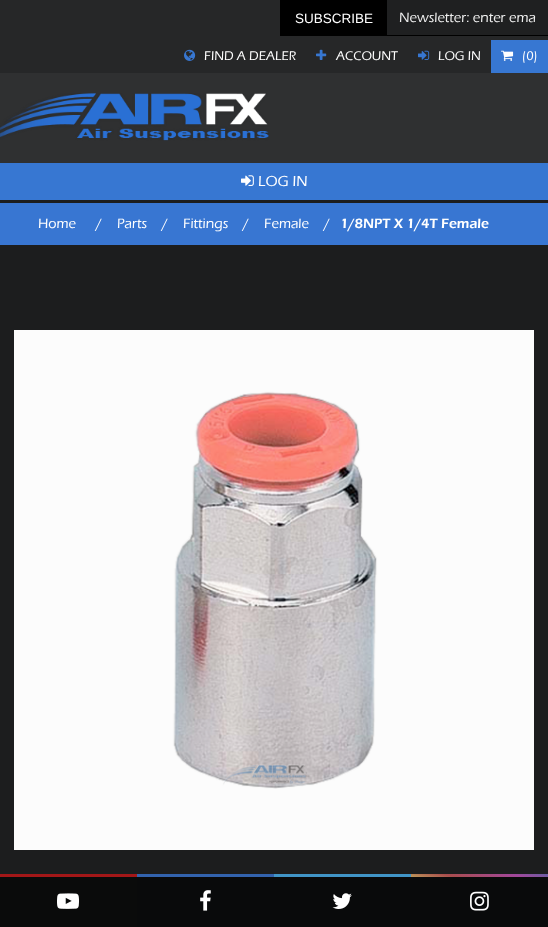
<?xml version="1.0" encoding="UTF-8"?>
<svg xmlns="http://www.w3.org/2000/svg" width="548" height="927">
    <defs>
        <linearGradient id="g1" gradientUnits="userSpaceOnUse" x1="475" y1="894" x2="484" y2="857"><stop offset="0" stop-color="#BFA45B"/><stop offset="0.31" stop-color="#A94D4D"/><stop offset="0.73" stop-color="#A2479B"/><stop offset="1" stop-color="#5B63A4"/></linearGradient>
    </defs>
    <rect width="100%" height="100%" fill="#1C1D1E"/>
    <rect x="0" y="73" width="548" height="90" fill="#2F3031"/>
    <rect x="0" y="0" width="548" height="73" fill="#262728"/>
    <rect x="280" y="0" width="107" height="36" fill="#000000"/>
    <text x="295" y="23" font-family="Liberation Sans" font-size="13.5" fill="#FFFFFF">SUBSCRIBE</text>
    <rect x="387" y="0" width="161" height="35" fill="#1F2021"/>
    <rect x="387" y="35" width="161" height="1" fill="#000000"/>
    <text x="399" y="22" font-family="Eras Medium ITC" font-size="14" font-weight="500" fill="#EEEEEE">Newsletter: enter ema</text>
    <image x="184" y="49" width="12" height="12" href="img_01.png"/>
    <text x="204" y="60" font-family="Eras Medium ITC" font-size="13" font-weight="500" fill="#FFFFFF">FIND A DEALER</text>
    <image x="316" y="49" width="11" height="11" href="img_02.png"/>
    <text x="336" y="60" font-family="Eras Medium ITC" font-size="13" font-weight="500" fill="#FFFFFF">ACCOUNT</text>
    <image x="418" y="50" width="12" height="10" href="img_03.png"/>
    <text x="438" y="60" font-family="Eras Medium ITC" font-size="13" font-weight="500" fill="#FFFFFF">LOG IN</text>
    <rect x="491" y="40" width="57" height="33" fill="#3777D2"/>
    <image x="501" y="50" width="13" height="11" href="img_04.png"/>
    <text x="522" y="60" font-family="Eras Medium ITC" font-size="13" font-weight="500" fill="#FFFFFF">(0)</text>
    <image x="0" y="93" width="269" height="48" href="img_05.png"/>
    <rect x="0" y="163" width="548" height="37" fill="#3777D2"/>
    <image x="241" y="175" width="13" height="11" href="img_06.png"/>
    <text x="258" y="186" font-family="Eras Medium ITC" font-size="15" font-weight="500" fill="#FFFFFF">LOG IN</text>
    <rect x="0" y="203" width="548" height="42" fill="#3876D2"/>
    <text x="38" y="228" font-family="Eras Medium ITC" font-size="14" font-weight="500" fill="#FFFFFF">Home</text>
    <text x="96" y="228" font-family="Eras Medium ITC" font-size="14" font-weight="500" fill="#FFFFFF">/</text>
    <text x="117" y="228" font-family="Eras Medium ITC" font-size="14" font-weight="500" fill="#FFFFFF">Parts</text>
    <text x="162" y="228" font-family="Eras Medium ITC" font-size="14" font-weight="500" fill="#FFFFFF">/</text>
    <text x="183" y="228" font-family="Eras Medium ITC" font-size="14" font-weight="500" fill="#FFFFFF">Fittings</text>
    <text x="243" y="228" font-family="Eras Medium ITC" font-size="14" font-weight="500" fill="#FFFFFF">/</text>
    <text x="264" y="228" font-family="Eras Medium ITC" font-size="14" font-weight="500" fill="#FFFFFF">Female</text>
    <text x="324" y="228" font-family="Eras Medium ITC" font-size="14" font-weight="500" fill="#FFFFFF">/</text>
    <text x="340" y="228" font-family="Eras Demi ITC" font-size="14" fill="#FFFFFF">1/8NPT X 1/4T Female</text>
    <image x="14" y="330" width="520" height="520" href="img_07.png"/>
    <rect x="0" y="877" width="137" height="50" fill="#0A0B0B"/>
    <rect x="0" y="874" width="137" height="3" fill="#A31718"/>
    <image x="57" y="893" width="22" height="16" href="img_08.png"/>
    <rect x="137" y="877" width="137" height="50" fill="#080909" fill-opacity="0.9"/>
    <rect x="137" y="874" width="137" height="3" fill="#3363AE"/>
    <image x="200" y="890" width="11" height="21" href="img_09.png"/>
    <rect x="274" y="877" width="137" height="50" fill="#080909" fill-opacity="0.9"/>
    <rect x="274" y="874" width="137" height="3" fill="#4195C7"/>
    <image x="332" y="893" width="20" height="16" href="img_10.png"/>
    <rect x="411" y="877" width="137" height="50" fill="#080909" fill-opacity="0.9"/>
    <rect x="411" y="874" width="137" height="3" fill="url(#g1)"/>
    <image x="470" y="891" width="19" height="20" href="img_11.png"/>
</svg>
